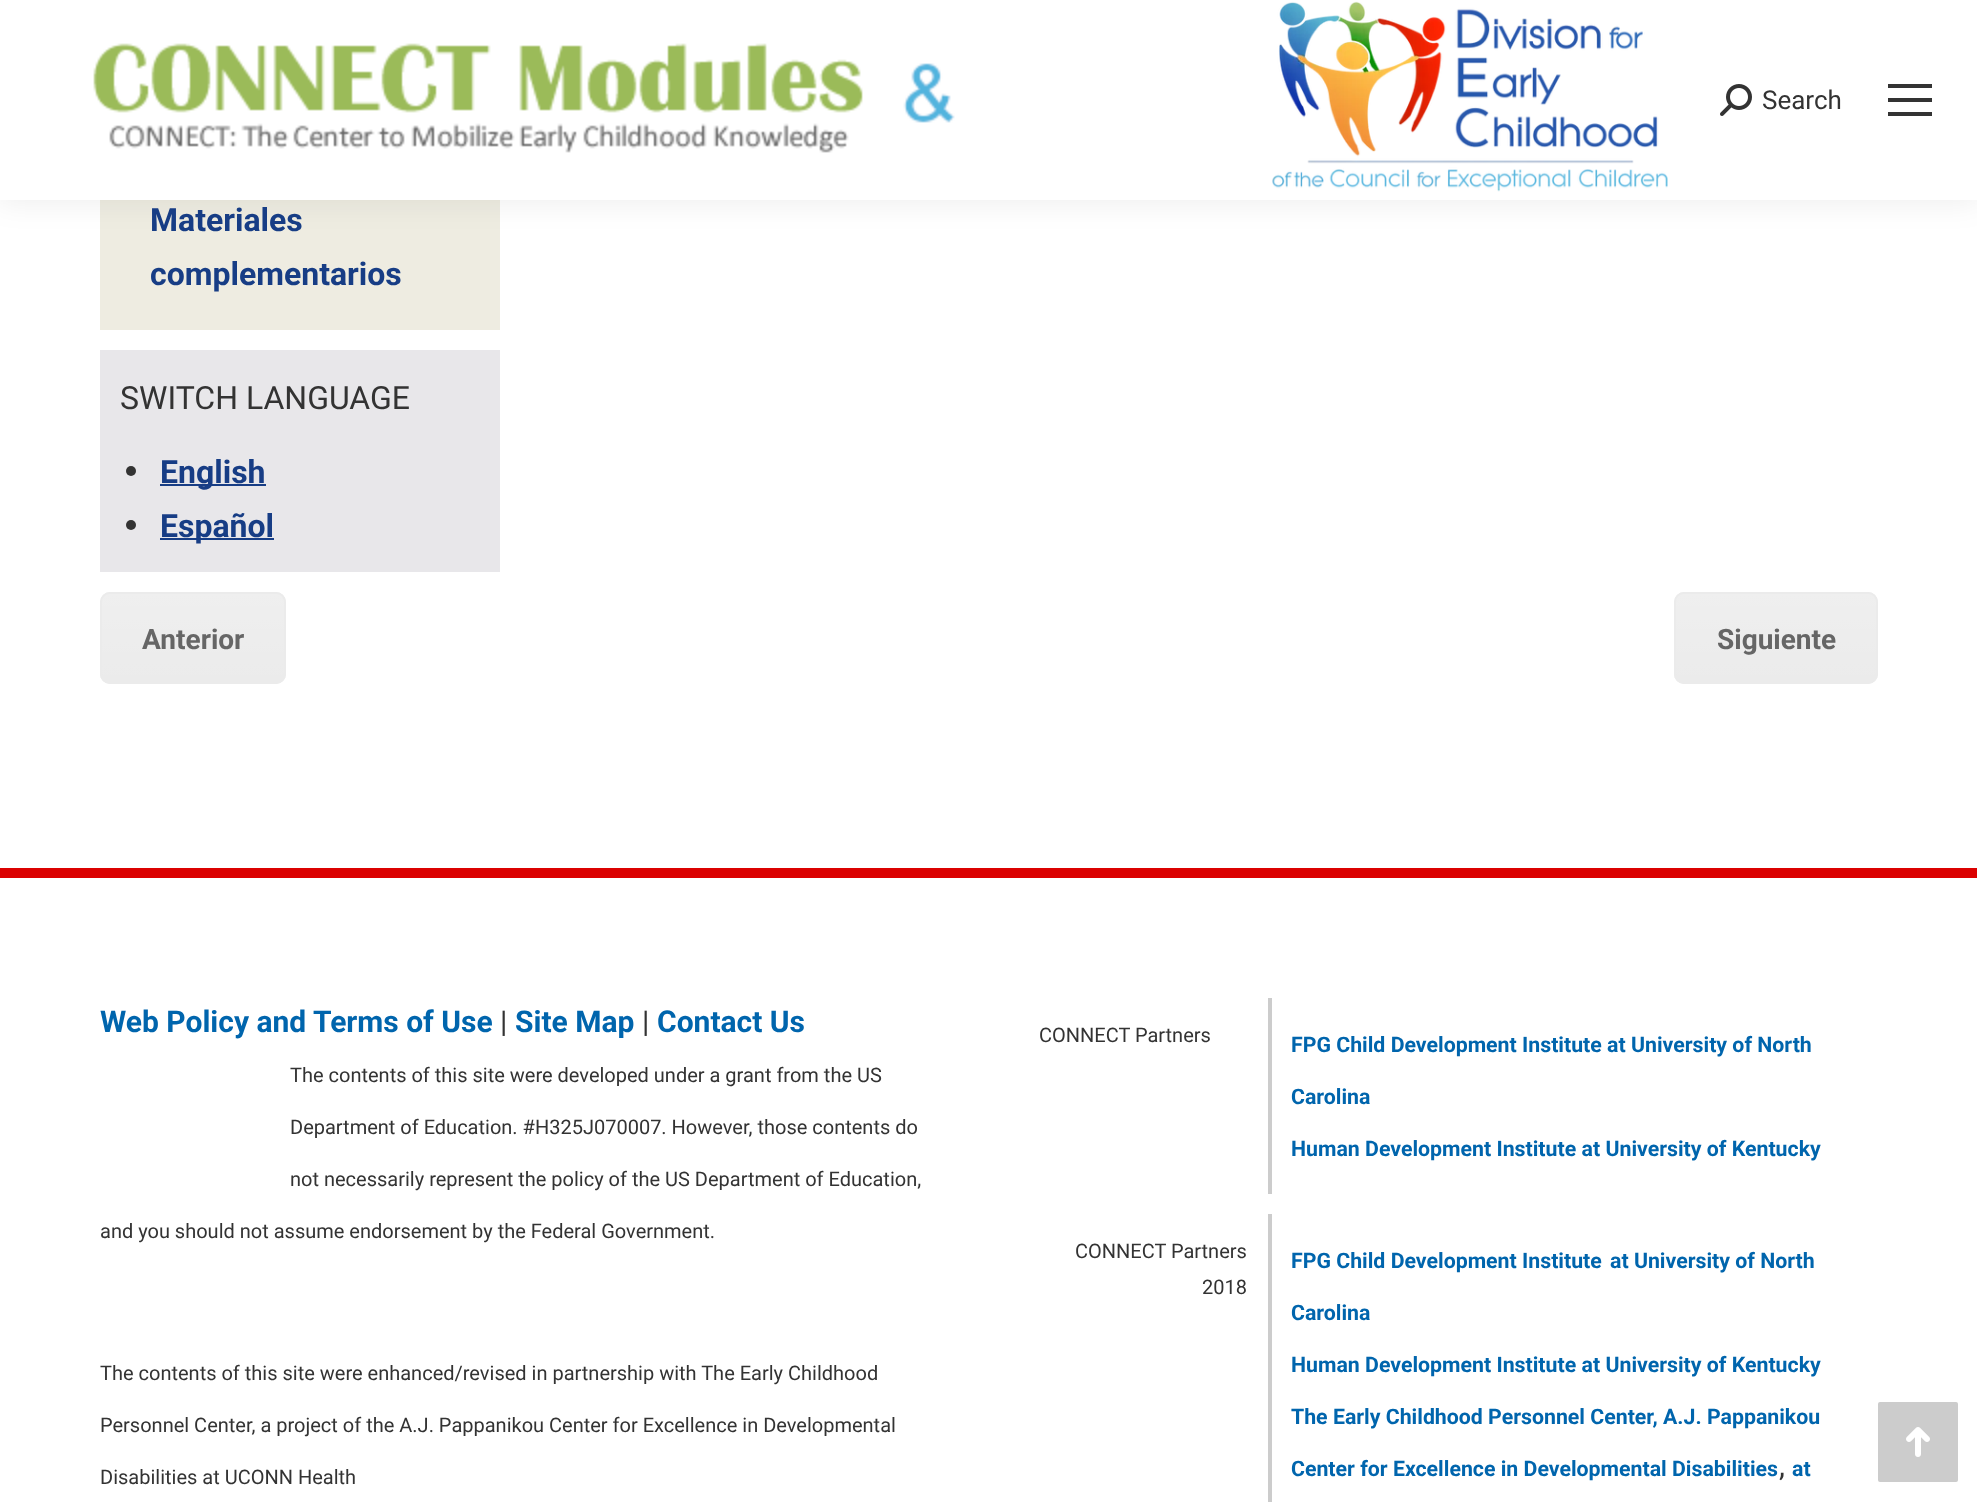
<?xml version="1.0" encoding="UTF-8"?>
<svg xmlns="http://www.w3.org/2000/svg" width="1977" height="1502">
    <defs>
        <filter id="blur1" x="-50%" y="-200%" width="200%" height="500%"><feGaussianBlur stdDeviation="15"/></filter>
        <clipPath id="clip1"><rect x="100" y="592" width="186" height="92" rx="10"/></clipPath>
        <linearGradient id="g1" gradientUnits="userSpaceOnUse" x1="193" y1="594" x2="193" y2="682"><stop offset="0" stop-color="#FFFFFF" stop-opacity="0.2"/><stop offset="1" stop-color="#FFFFFF" stop-opacity="0.01"/></linearGradient>
        <clipPath id="clip2"><rect x="1674" y="592" width="204" height="92" rx="10"/></clipPath>
        <linearGradient id="g2" gradientUnits="userSpaceOnUse" x1="1776" y1="594" x2="1776" y2="682"><stop offset="0" stop-color="#FFFFFF" stop-opacity="0.2"/><stop offset="1" stop-color="#FFFFFF" stop-opacity="0.01"/></linearGradient>
    </defs>
    <rect width="100%" height="100%" fill="#FFFFFF"/>
    <rect x="100" y="200" width="400" height="130" fill="#EEECE1"/>
    <rect x="-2" y="-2" width="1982" height="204" fill="#000000" fill-opacity="0.07" filter="url(#blur1)"/>
    <rect x="0" y="0" width="1977" height="200" fill="#FFFFFF"/>
    <image x="93" y="43" width="862" height="110" href="img_01.png"/>
    <image x="1272" y="1" width="396" height="191" href="img_02.png"/>
    <image x="1720" y="84" width="32" height="32" href="img_03.png"/>
    <text x="1762" y="109" font-family="Roboto" font-size="26" fill="#333333">Search</text>
    <rect x="1888" y="84" width="44" height="4" fill="#333333"/>
    <rect x="1888" y="98" width="44" height="4" fill="#333333"/>
    <rect x="1888" y="112" width="44" height="4" fill="#333333"/>
    <text font-family="Roboto" font-size="32" font-weight="700" fill="#173D85">
        <tspan x="150" y="231">Materiales</tspan>
        <tspan x="150" y="285">complementarios</tspan>
    </text>
    <rect x="100" y="350" width="400" height="222" fill="#E8E7EA"/>
    <text x="120" y="409" font-family="Roboto" font-size="32" fill="#333333">SWITCH LANGUAGE</text>
    <circle cx="131" cy="471" r="5" fill="#333333"/>
    <rect x="160" y="484" width="106" height="2" fill="#173D85"/>
    <text x="160" y="483" font-family="Roboto" font-size="32" font-weight="700" fill="#173D85">English</text>
    <circle cx="131" cy="525" r="5" fill="#333333"/>
    <rect x="160" y="538" width="114" height="2" fill="#173D85"/>
    <text x="160" y="537" font-family="Roboto" font-size="32" font-weight="700" fill="#173D85">Español</text>
    <rect x="100" y="592" width="186" height="92" rx="10" fill="#EBEBEB"/>
    <g clip-path="url(#clip1)">
        <rect x="100" y="594" width="186" height="83" fill="url(#g1)"/>
    </g>
    <rect x="101" y="593" width="184" height="90" rx="9" fill="none" stroke="#EBEBEB" stroke-width="2"/>
    <text x="142" y="649" font-family="Roboto" font-size="28" font-weight="700" fill="#666666">Anterior</text>
    <rect x="1674" y="592" width="204" height="92" rx="10" fill="#EBEBEB"/>
    <g clip-path="url(#clip2)">
        <rect x="1674" y="594" width="204" height="83" fill="url(#g2)"/>
    </g>
    <rect x="1675" y="593" width="202" height="90" rx="9" fill="none" stroke="#EBEBEB" stroke-width="2"/>
    <text x="1717" y="649" font-family="Roboto" font-size="28" font-weight="700" fill="#666666">Siguiente</text>
    <rect x="0" y="868" width="1977" height="10" fill="#DB0101"/>
    <text x="100" y="1032" font-family="Roboto" font-size="30" font-weight="700" fill="#0065AD">Web Policy and Terms of Use</text>
    <text x="500" y="1032" font-family="Roboto" font-size="30" fill="#333333">|</text>
    <text x="515" y="1032" font-family="Roboto" font-size="30" font-weight="700" fill="#0065AD">Site Map</text>
    <text x="642" y="1032" font-family="Roboto" font-size="30" fill="#333333">|</text>
    <text x="657" y="1032" font-family="Roboto" font-size="30" font-weight="700" fill="#0065AD">Contact Us</text>
    <text x="290" y="1082" font-family="Roboto" font-size="20" fill="#333333">The contents of this site were developed under a grant from the US</text>
    <text x="290" y="1134" font-family="Roboto" font-size="20" fill="#333333">Department of Education. #H325J070007. However, those contents do</text>
    <text x="290" y="1186" font-family="Roboto" font-size="20" fill="#333333">not necessarily represent the policy of the US Department of Education,</text>
    <text x="100" y="1238" font-family="Roboto" font-size="20" fill="#333333">and you should not assume endorsement by the Federal Government.</text>
    <text x="100" y="1380" font-family="Roboto" font-size="20" fill="#333333">The contents of this site were enhanced/revised in partnership with The Early Childhood</text>
    <text x="100" y="1432" font-family="Roboto" font-size="20" fill="#333333">Personnel Center, a project of the A.J. Pappanikou Center for Excellence in Developmental</text>
    <text x="100" y="1484" font-family="Roboto" font-size="20" fill="#333333">Disabilities at UCONN Health</text>
    <text x="1039" y="1042" font-family="Roboto" font-size="20" fill="#333333">CONNECT Partners</text>
    <rect x="1268" y="998" width="4" height="196" fill="#CCCCCC"/>
    <text x="1291" y="1052" font-family="Roboto" font-size="21.3" font-weight="700" fill="#0065AD">FPG Child Development Institute at University of North</text>
    <text x="1291" y="1104" font-family="Roboto" font-size="21.3" font-weight="700" fill="#0065AD">Carolina</text>
    <text x="1291" y="1156" font-family="Roboto" font-size="21.3" font-weight="700" fill="#0065AD">Human Development Institute at University of Kentucky</text>
    <text x="1075" y="1258" font-family="Roboto" font-size="20" fill="#333333">CONNECT Partners</text>
    <text x="1202" y="1294" font-family="Roboto" font-size="20" fill="#333333">2018</text>
    <rect x="1268" y="1214" width="4" height="288" fill="#CCCCCC"/>
    <text x="1291" y="1268" font-family="Roboto" font-size="21.3" font-weight="700" fill="#0065AD">FPG Child Development Institute</text>
    <text x="1610" y="1268" font-family="Roboto" font-size="21.3" font-weight="700" fill="#0065AD">at University of North</text>
    <text x="1291" y="1320" font-family="Roboto" font-size="21.3" font-weight="700" fill="#0065AD">Carolina</text>
    <text x="1291" y="1372" font-family="Roboto" font-size="21.3" font-weight="700" fill="#0065AD">Human Development Institute at University of Kentucky</text>
    <text x="1291" y="1424" font-family="Roboto" font-size="21.3" font-weight="700" fill="#0065AD">The Early Childhood Personnel Center, A.J. Pappanikou</text>
    <text x="1291" y="1476" font-family="Roboto" font-size="21.3" font-weight="700" fill="#0065AD">Center for Excellence in Developmental Disabilities</text>
    <text x="1779" y="1476" font-family="Roboto" font-size="30" fill="#333333">,</text>
    <text x="1792" y="1476" font-family="Roboto" font-size="21.3" font-weight="700" fill="#0065AD">at</text>
    <rect x="1878" y="1402" width="80" height="80" rx="2" fill="#CCCCCC"/>
    <image x="1906" y="1427" width="24" height="30" href="img_04.png"/>
</svg>
